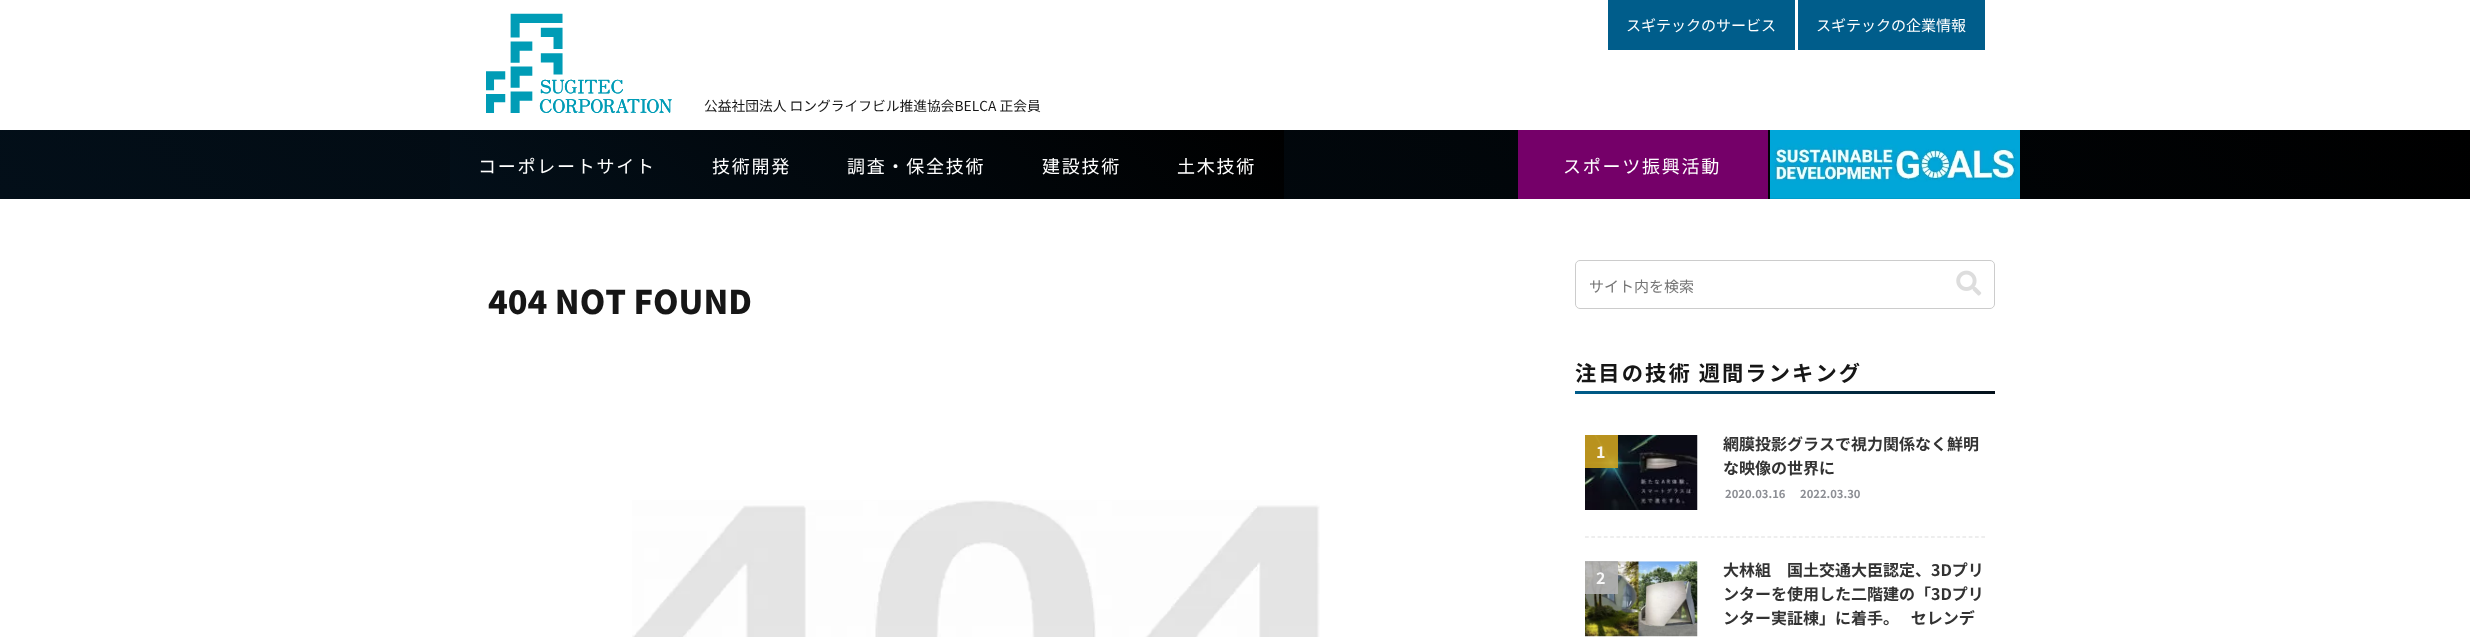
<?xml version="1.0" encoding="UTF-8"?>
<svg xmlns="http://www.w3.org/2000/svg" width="2470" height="637">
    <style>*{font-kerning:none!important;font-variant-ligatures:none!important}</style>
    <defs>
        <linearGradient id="g1" gradientUnits="userSpaceOnUse" x1="600" y1="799" x2="1870" y2="-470"><stop offset="0" stop-color="#030F19"/><stop offset="1" stop-color="#000000"/></linearGradient>
        <linearGradient id="g2" gradientUnits="userSpaceOnUse" x1="641" y1="390" x2="1093" y2="-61"><stop offset="0" stop-color="#030F19"/><stop offset="1" stop-color="#000000"/></linearGradient>
        <linearGradient id="g3" gradientUnits="userSpaceOnUse" x1="1575" y1="393" x2="1995" y2="393"><stop offset="0" stop-color="#005D8B"/><stop offset="1" stop-color="#030F19"/></linearGradient>
    </defs>
    <rect width="100%" height="100%" fill="#FFFFFF"/>
    <image x="486" y="13" width="186" height="100" href="img_01.png"/>
    <rect x="1608" y="0" width="187" height="50" fill="#005D8B"/>
    <text x="1626" y="31" font-family="Noto Sans JP" font-size="15" fill="#FFFFFF">スギテックのサービス</text>
    <rect x="1798" y="0" width="187" height="50" fill="#005D8B"/>
    <text x="1816" y="31" font-family="Noto Sans JP" font-size="15" fill="#FFFFFF">スギテックの企業情報</text>
    <text x="704" y="111" font-family="Noto Sans JP" font-size="13.75" fill="#161616">公益社団法人 ロングライフビル推進協会BELCA 正会員</text>
    <rect x="0" y="130" width="2470" height="69" fill="url(#g1)"/>
    <rect x="450" y="130" width="834" height="69" fill="url(#g2)"/>
    <text x="478" y="173" font-family="Noto Sans JP" font-size="18" letter-spacing="1.75" fill="#FFFFFF">コーポレートサイト</text>
    <text x="712" y="173" font-family="Noto Sans JP" font-size="18" letter-spacing="1.75" fill="#FFFFFF">技術開発</text>
    <text x="847" y="173" font-family="Noto Sans JP" font-size="18" letter-spacing="1.75" fill="#FFFFFF">調査・保全技術</text>
    <text x="1042" y="173" font-family="Noto Sans JP" font-size="18" letter-spacing="1.75" fill="#FFFFFF">建設技術</text>
    <text x="1177" y="173" font-family="Noto Sans JP" font-size="18" letter-spacing="1.75" fill="#FFFFFF">土木技術</text>
    <rect x="1518" y="130" width="250" height="69" fill="#750069"/>
    <text x="1563" y="173" font-family="Noto Sans JP" font-size="18" letter-spacing="1.75" fill="#FFFFFF">スポーツ振興活動</text>
    <image x="1770" y="130" width="250" height="68" href="img_02.png"/>
    <rect x="1770" y="198" width="250" height="1" fill="#009CCB"/>
    <text x="488" y="314" font-family="Noto Sans JP" font-size="32.5" font-weight="900" fill="#161616">404 NOT FOUND</text>
    <image x="632" y="500" width="688" height="137" href="img_03.png"/>
    <rect x="1575.5" y="260.5" width="419" height="48" rx="4.5" fill="none" stroke="#CCCCCC"/>
    <text x="1589" y="292" font-family="Noto Sans JP" font-size="15" fill="#757575">サイト内を検索</text>
    <image x="1956" y="270" width="26" height="26" href="img_04.png"/>
    <text x="1575" y="381" font-family="Noto Sans JP" font-size="21.25" font-weight="700" letter-spacing="2.1" fill="#161616">注目の技術 週間ランキング</text>
    <rect x="1575" y="391" width="420" height="3" fill="url(#g3)"/>
    <path d="M 1585 537 H 1985" fill="none" stroke="#DDDDDD" stroke-width="1.2" stroke-dasharray="3.75 2.54"/>
    <image x="1585" y="435" width="113" height="75" href="img_05.png"/>
    <rect x="1585" y="435" width="33" height="33" fill="#CCA11F" fill-opacity="0.9"/>
    <text x="1596" y="458" font-family="Noto Sans JP" font-size="16" font-weight="700" fill="#F8F4E9">1</text>
    <text font-family="Noto Sans JP" font-size="16" font-weight="700" fill="#333333">
        <tspan x="1723" y="450">網膜投影グラスで視力関係なく鮮明</tspan>
        <tspan x="1723" y="474">な映像の世界に</tspan>
    </text>
    <text x="1725" y="498" font-family="Noto Sans JP" font-size="11.25" font-weight="700" fill="#8C8E94">2020.03.16</text>
    <text x="1800" y="498" font-family="Noto Sans JP" font-size="11.25" font-weight="700" fill="#8C8E94">2022.03.30</text>
    <image x="1585" y="561" width="113" height="76" href="img_06.png"/>
    <rect x="1585" y="561" width="33" height="33" fill="#B1B1B3" fill-opacity="0.9"/>
    <text x="1596" y="584" font-family="Noto Sans JP" font-size="16" font-weight="700" fill="#F6F6F6">2</text>
    <text font-family="Noto Sans JP" font-size="16" font-weight="700" fill="#333333">
        <tspan x="1723" y="576">大林組　国土交通大臣認定、3Dプリ</tspan>
        <tspan x="1723" y="600">ンターを使用した二階建の「3Dプリ</tspan>
        <tspan x="1723" y="624">ンター実証棟」に着手。　 セレンデ</tspan>
    </text>
</svg>
